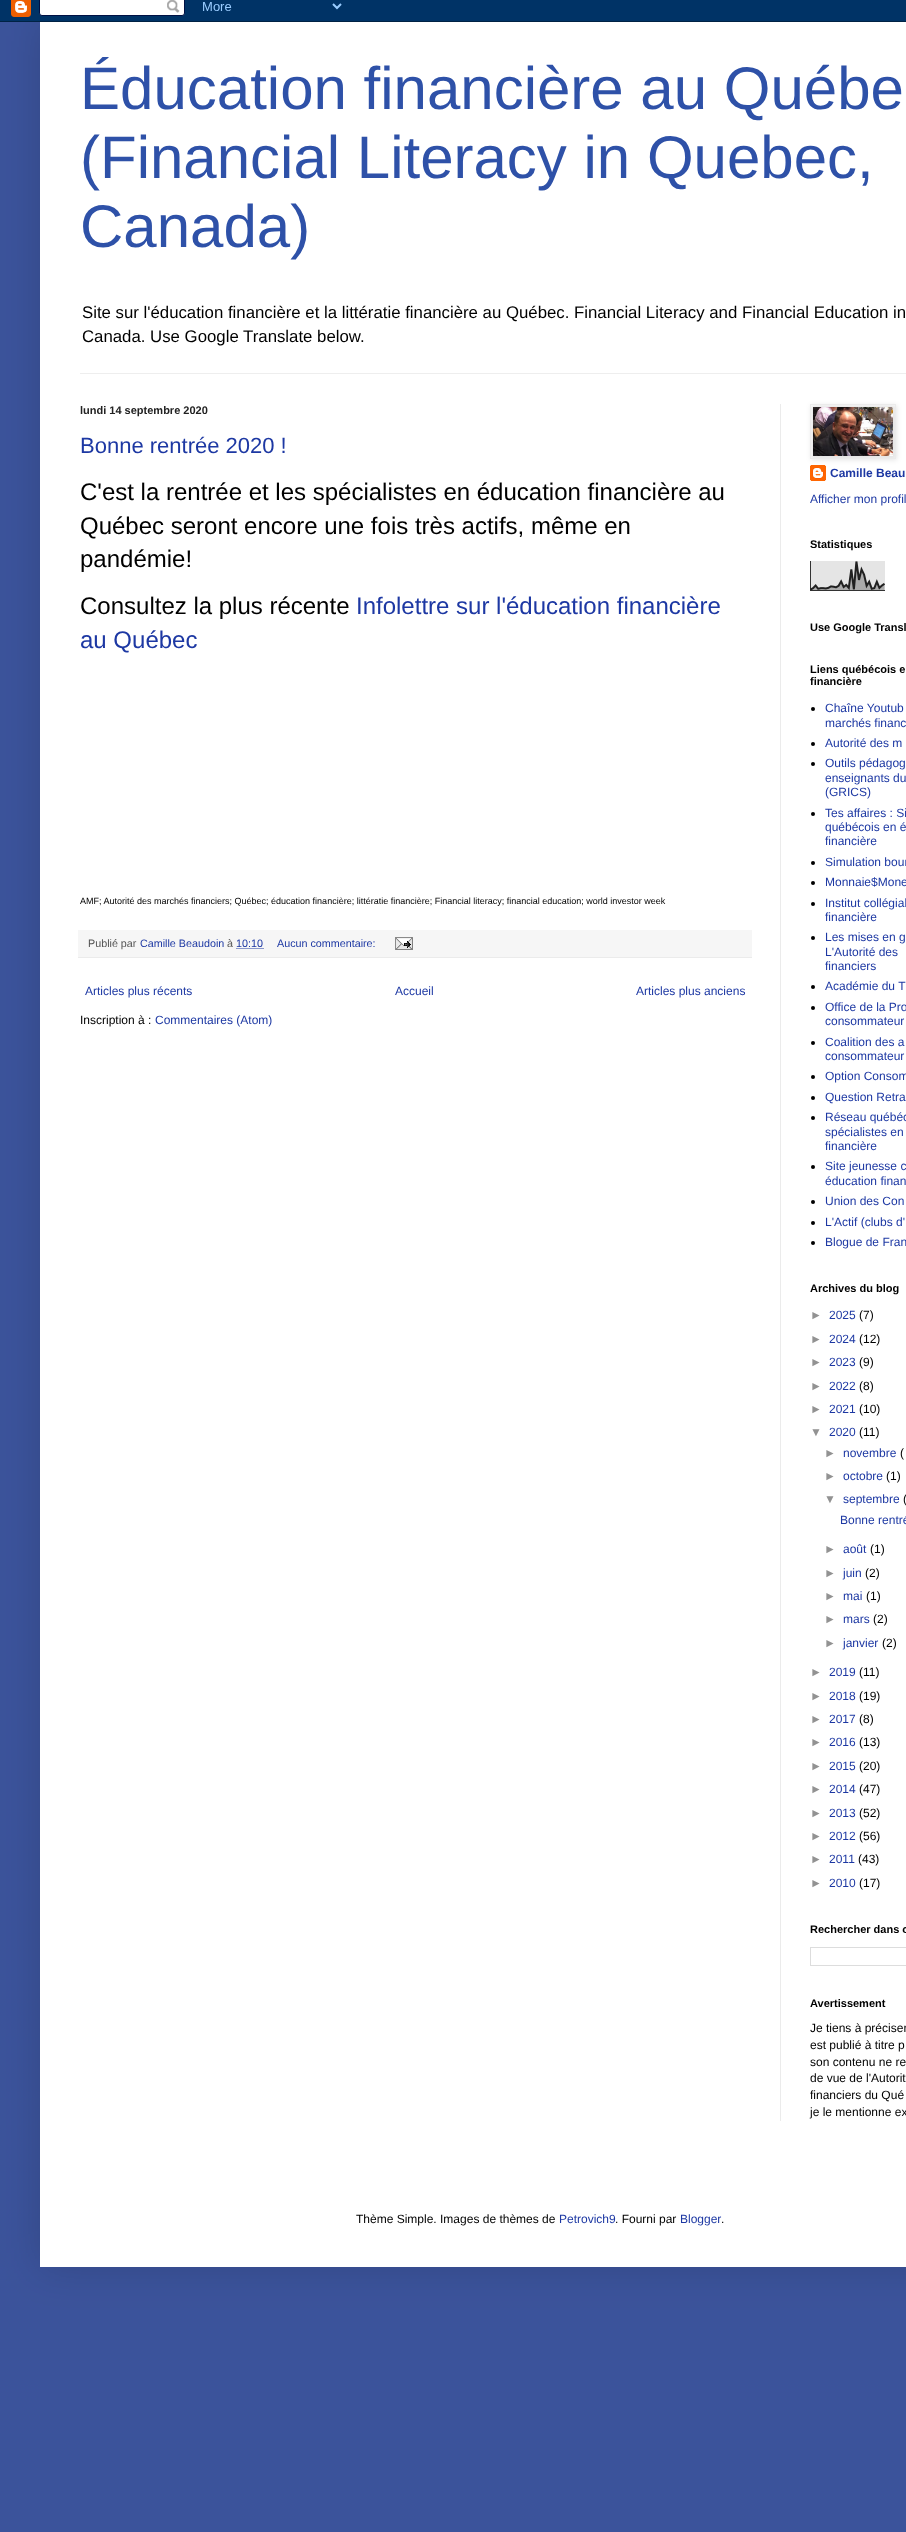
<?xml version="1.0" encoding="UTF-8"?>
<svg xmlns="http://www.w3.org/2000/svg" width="906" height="2532">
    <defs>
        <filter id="blur1" x="-50%" y="-200%" width="200%" height="500%"><feGaussianBlur stdDeviation="20"/></filter>
        <filter id="blur2" x="-50%" y="-200%" width="200%" height="500%"><feGaussianBlur stdDeviation="2.5"/></filter>
    </defs>
    <rect width="100%" height="100%" fill="#3B539B"/>
    <rect x="40" y="22" width="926" height="2245" fill="#000000" fill-opacity="0.15" filter="url(#blur1)"/>
    <image x="0" y="0" width="906" height="22" href="img_01.png"/>
    <rect x="40" y="22" width="866" height="2245" fill="#FFFFFF"/>
    <text font-family="Liberation Sans" font-size="60" fill="#2E51A8">
        <tspan x="80" y="109">Éducation financière au Québe</tspan>
        <tspan x="80" y="178">(Financial Literacy in Quebec,</tspan>
        <tspan x="80" y="247">Canada)</tspan>
    </text>
    <text font-family="Liberation Sans" font-size="16.8" fill="#000000">
        <tspan x="82" y="318">Site sur l'éducation financière et la littératie financière au Québec. Financial Literacy and Financial Education in</tspan>
        <tspan x="82" y="342">Canada. Use Google Translate below.</tspan>
    </text>
    <rect x="80" y="373" width="826" height="1" fill="#EEEEEE"/>
    <rect x="780" y="404" width="1" height="1717" fill="#EBEBEB"/>
    <text x="80" y="414" font-family="Liberation Sans" font-size="11" font-weight="700" fill="#222222">lundi 14 septembre 2020</text>
    <text x="80" y="453" font-family="Liberation Sans" font-size="22" fill="#1D38A3">Bonne rentrée 2020 !</text>
    <text font-family="Liberation Sans" font-size="24" fill="#000000">
        <tspan x="80" y="500">C'est la rentrée et les spécialistes en éducation financière au</tspan>
        <tspan x="80" y="534">Québec seront encore une fois très actifs, même en</tspan>
        <tspan x="80" y="567">pandémie!</tspan>
        <tspan x="80" y="614">Consultez la plus récente</tspan>
    </text>
    <text x="356" y="614" font-family="Liberation Sans" font-size="24" fill="#1D38A3">Infolettre sur l'éducation financière</text>
    <text x="80" y="648" font-family="Liberation Sans" font-size="24" fill="#1D38A3">au Québec</text>
    <text x="80" y="904" font-family="Liberation Sans" font-size="9" fill="#000000">AMF; Autorité des marchés financiers; Québec; éducation financière; littératie financière; Financial literacy; financial education; world investor week</text>
    <rect x="78" y="930" width="674" height="27" fill="#F6F6F6"/>
    <rect x="78" y="957" width="674" height="1" fill="#EBEBEB"/>
    <text x="88" y="947" font-family="Liberation Sans" font-size="10.75" fill="#545454">Publié par</text>
    <text x="140" y="947" font-family="Liberation Sans" font-size="10.75" fill="#1D38A3">Camille Beaudoin</text>
    <text x="227" y="947" font-family="Liberation Sans" font-size="10.75" fill="#545454">à</text>
    <text x="236" y="947" font-family="Liberation Sans" font-size="10.75" fill="#1D38A3">10:10</text>
    <path d="M 236.5 948.5 H 263.5" fill="none" stroke="#1D38A3" stroke-dasharray="1 1"/>
    <text x="277" y="947" font-family="Liberation Sans" font-size="10.75" fill="#1D38A3">Aucun commentaire:</text>
    <image x="395" y="937" width="18" height="13" href="img_02.png"/>
    <text x="85" y="995" font-family="Liberation Sans" font-size="12" fill="#1D38A3">Articles plus récents</text>
    <text x="395" y="995" font-family="Liberation Sans" font-size="12" fill="#1D38A3">Accueil</text>
    <text x="636" y="995" font-family="Liberation Sans" font-size="12" fill="#1D38A3">Articles plus anciens</text>
    <text x="80" y="1024" font-family="Liberation Sans" font-size="12" fill="#000000">Inscription à :</text>
    <text x="155" y="1024" font-family="Liberation Sans" font-size="12" fill="#1D38A3">Commentaires (Atom)</text>
    <image x="810" y="465" width="16" height="16" href="img_04.png"/>
    <rect x="811" y="405" width="86" height="55" fill="#000000" fill-opacity="0.1" filter="url(#blur2)"/>
    <rect x="810.5" y="404.5" width="85" height="54" fill="none" stroke="#EBEBEB"/>
    <image x="813" y="407" width="80" height="49" href="img_03.png"/>
    <text x="830" y="477" font-family="Liberation Sans" font-size="12" font-weight="700" fill="#1D38A3">Camille Beau</text>
    <text x="810" y="503" font-family="Liberation Sans" font-size="12" fill="#1D38A3">Afficher mon profil</text>
    <text x="810" y="548" font-family="Liberation Sans" font-size="11" font-weight="700" fill="#000000">Statistiques</text>
    <image x="810" y="561" width="75" height="30" href="img_05.png"/>
    <text x="810" y="631" font-family="Liberation Sans" font-size="11" font-weight="700" fill="#000000">Use Google Transl</text>
    <text font-family="Liberation Sans" font-size="11" font-weight="700" fill="#000000">
        <tspan x="810" y="673">Liens québécois e</tspan>
        <tspan x="810" y="685">financière</tspan>
    </text>
    <circle cx="813" cy="709" r="2" fill="#000000"/>
    <text font-family="Liberation Sans" font-size="12" fill="#1D38A3">
        <tspan x="825" y="712">Chaîne Youtub</tspan>
        <tspan x="825" y="727">marchés financ</tspan>
    </text>
    <circle cx="813" cy="744" r="2" fill="#000000"/>
    <text x="825" y="747" font-family="Liberation Sans" font-size="12" fill="#1D38A3">Autorité des m</text>
    <circle cx="813" cy="764" r="2" fill="#000000"/>
    <text font-family="Liberation Sans" font-size="12" fill="#1D38A3">
        <tspan x="825" y="767">Outils pédagog</tspan>
        <tspan x="825" y="782">enseignants du</tspan>
        <tspan x="825" y="796">(GRICS)</tspan>
    </text>
    <circle cx="813" cy="814" r="2" fill="#000000"/>
    <text font-family="Liberation Sans" font-size="12" fill="#1D38A3">
        <tspan x="825" y="817">Tes affaires : Si</tspan>
        <tspan x="825" y="831">québécois en é</tspan>
        <tspan x="825" y="845">financière</tspan>
    </text>
    <circle cx="813" cy="863" r="2" fill="#000000"/>
    <text x="825" y="866" font-family="Liberation Sans" font-size="12" fill="#1D38A3">Simulation bour</text>
    <circle cx="813" cy="883" r="2" fill="#000000"/>
    <text x="825" y="886" font-family="Liberation Sans" font-size="12" fill="#1D38A3">Monnaie$Mone</text>
    <circle cx="813" cy="904" r="2" fill="#000000"/>
    <text font-family="Liberation Sans" font-size="12" fill="#1D38A3">
        <tspan x="825" y="907">Institut collégial</tspan>
        <tspan x="825" y="921">financière</tspan>
    </text>
    <circle cx="813" cy="938" r="2" fill="#000000"/>
    <text font-family="Liberation Sans" font-size="12" fill="#1D38A3">
        <tspan x="825" y="941">Les mises en g</tspan>
        <tspan x="825" y="956">L'Autorité des</tspan>
        <tspan x="825" y="970">financiers</tspan>
    </text>
    <circle cx="813" cy="987" r="2" fill="#000000"/>
    <text x="825" y="990" font-family="Liberation Sans" font-size="12" fill="#1D38A3">Académie du T</text>
    <circle cx="813" cy="1008" r="2" fill="#000000"/>
    <text font-family="Liberation Sans" font-size="12" fill="#1D38A3">
        <tspan x="825" y="1011">Office de la Pro</tspan>
        <tspan x="825" y="1025">consommateur</tspan>
    </text>
    <circle cx="813" cy="1043" r="2" fill="#000000"/>
    <text font-family="Liberation Sans" font-size="12" fill="#1D38A3">
        <tspan x="825" y="1046">Coalition des a</tspan>
        <tspan x="825" y="1060">consommateur</tspan>
    </text>
    <circle cx="813" cy="1077" r="2" fill="#000000"/>
    <text x="825" y="1080" font-family="Liberation Sans" font-size="12" fill="#1D38A3">Option Consom</text>
    <circle cx="813" cy="1098" r="2" fill="#000000"/>
    <text x="825" y="1101" font-family="Liberation Sans" font-size="12" fill="#1D38A3">Question Retra</text>
    <circle cx="813" cy="1118" r="2" fill="#000000"/>
    <text font-family="Liberation Sans" font-size="12" fill="#1D38A3">
        <tspan x="825" y="1121">Réseau québéc</tspan>
        <tspan x="825" y="1136">spécialistes en</tspan>
        <tspan x="825" y="1150">financière</tspan>
    </text>
    <circle cx="813" cy="1167" r="2" fill="#000000"/>
    <text font-family="Liberation Sans" font-size="12" fill="#1D38A3">
        <tspan x="825" y="1170">Site jeunesse c</tspan>
        <tspan x="825" y="1185">éducation finan</tspan>
    </text>
    <circle cx="813" cy="1202" r="2" fill="#000000"/>
    <text x="825" y="1205" font-family="Liberation Sans" font-size="12" fill="#1D38A3">Union des Con</text>
    <circle cx="813" cy="1223" r="2" fill="#000000"/>
    <text x="825" y="1226" font-family="Liberation Sans" font-size="12" fill="#1D38A3">L'Actif (clubs d'</text>
    <circle cx="813" cy="1243" r="2" fill="#000000"/>
    <text x="825" y="1246" font-family="Liberation Sans" font-size="12" fill="#1D38A3">Blogue de Fran</text>
    <text x="810" y="1292" font-family="Liberation Sans" font-size="11" font-weight="700" fill="#000000">Archives du blog</text>
    <text x="810" y="1319" font-family="Liberation Sans" font-size="12" fill="#929292">►</text>
    <text x="829" y="1319" font-family="Liberation Sans" font-size="12" fill="#1D38A3">2025</text>
    <text x="859" y="1319" font-family="Liberation Sans" font-size="12" fill="#000000">(7)</text>
    <text x="810" y="1343" font-family="Liberation Sans" font-size="12" fill="#929292">►</text>
    <text x="829" y="1343" font-family="Liberation Sans" font-size="12" fill="#1D38A3">2024</text>
    <text x="859" y="1343" font-family="Liberation Sans" font-size="12" fill="#000000">(12)</text>
    <text x="810" y="1366" font-family="Liberation Sans" font-size="12" fill="#929292">►</text>
    <text x="829" y="1366" font-family="Liberation Sans" font-size="12" fill="#1D38A3">2023</text>
    <text x="859" y="1366" font-family="Liberation Sans" font-size="12" fill="#000000">(9)</text>
    <text x="810" y="1390" font-family="Liberation Sans" font-size="12" fill="#929292">►</text>
    <text x="829" y="1390" font-family="Liberation Sans" font-size="12" fill="#1D38A3">2022</text>
    <text x="859" y="1390" font-family="Liberation Sans" font-size="12" fill="#000000">(8)</text>
    <text x="810" y="1413" font-family="Liberation Sans" font-size="12" fill="#929292">►</text>
    <text x="829" y="1413" font-family="Liberation Sans" font-size="12" fill="#1D38A3">2021</text>
    <text x="859" y="1413" font-family="Liberation Sans" font-size="12" fill="#000000">(10)</text>
    <text x="810" y="1436" font-family="Liberation Sans" font-size="12" fill="#929292">▼</text>
    <text x="829" y="1436" font-family="Liberation Sans" font-size="12" fill="#1D38A3">2020</text>
    <text x="859" y="1436" font-family="Liberation Sans" font-size="12" fill="#000000">(11)</text>
    <text x="824" y="1457" font-family="Liberation Sans" font-size="12" fill="#929292">►</text>
    <text x="843" y="1457" font-family="Liberation Sans" font-size="12" fill="#1D38A3">novembre</text>
    <text x="900" y="1457" font-family="Liberation Sans" font-size="12" fill="#000000">(</text>
    <text x="824" y="1480" font-family="Liberation Sans" font-size="12" fill="#929292">►</text>
    <text x="843" y="1480" font-family="Liberation Sans" font-size="12" fill="#1D38A3">octobre</text>
    <text x="886" y="1480" font-family="Liberation Sans" font-size="12" fill="#000000">(1)</text>
    <text x="824" y="1503" font-family="Liberation Sans" font-size="12" fill="#929292">▼</text>
    <text x="843" y="1503" font-family="Liberation Sans" font-size="12" fill="#1D38A3">septembre</text>
    <text x="903" y="1503" font-family="Liberation Sans" font-size="12" fill="#000000">(</text>
    <text x="840" y="1524" font-family="Liberation Sans" font-size="12" fill="#1D38A3">Bonne rentré</text>
    <text x="824" y="1553" font-family="Liberation Sans" font-size="12" fill="#929292">►</text>
    <text x="843" y="1553" font-family="Liberation Sans" font-size="12" fill="#1D38A3">août</text>
    <text x="870" y="1553" font-family="Liberation Sans" font-size="12" fill="#000000">(1)</text>
    <text x="824" y="1577" font-family="Liberation Sans" font-size="12" fill="#929292">►</text>
    <text x="843" y="1577" font-family="Liberation Sans" font-size="12" fill="#1D38A3">juin</text>
    <text x="865" y="1577" font-family="Liberation Sans" font-size="12" fill="#000000">(2)</text>
    <text x="824" y="1600" font-family="Liberation Sans" font-size="12" fill="#929292">►</text>
    <text x="843" y="1600" font-family="Liberation Sans" font-size="12" fill="#1D38A3">mai</text>
    <text x="866" y="1600" font-family="Liberation Sans" font-size="12" fill="#000000">(1)</text>
    <text x="824" y="1623" font-family="Liberation Sans" font-size="12" fill="#929292">►</text>
    <text x="843" y="1623" font-family="Liberation Sans" font-size="12" fill="#1D38A3">mars</text>
    <text x="873" y="1623" font-family="Liberation Sans" font-size="12" fill="#000000">(2)</text>
    <text x="824" y="1647" font-family="Liberation Sans" font-size="12" fill="#929292">►</text>
    <text x="843" y="1647" font-family="Liberation Sans" font-size="12" fill="#1D38A3">janvier</text>
    <text x="882" y="1647" font-family="Liberation Sans" font-size="12" fill="#000000">(2)</text>
    <text x="810" y="1676" font-family="Liberation Sans" font-size="12" fill="#929292">►</text>
    <text x="829" y="1676" font-family="Liberation Sans" font-size="12" fill="#1D38A3">2019</text>
    <text x="859" y="1676" font-family="Liberation Sans" font-size="12" fill="#000000">(11)</text>
    <text x="810" y="1700" font-family="Liberation Sans" font-size="12" fill="#929292">►</text>
    <text x="829" y="1700" font-family="Liberation Sans" font-size="12" fill="#1D38A3">2018</text>
    <text x="859" y="1700" font-family="Liberation Sans" font-size="12" fill="#000000">(19)</text>
    <text x="810" y="1723" font-family="Liberation Sans" font-size="12" fill="#929292">►</text>
    <text x="829" y="1723" font-family="Liberation Sans" font-size="12" fill="#1D38A3">2017</text>
    <text x="859" y="1723" font-family="Liberation Sans" font-size="12" fill="#000000">(8)</text>
    <text x="810" y="1746" font-family="Liberation Sans" font-size="12" fill="#929292">►</text>
    <text x="829" y="1746" font-family="Liberation Sans" font-size="12" fill="#1D38A3">2016</text>
    <text x="859" y="1746" font-family="Liberation Sans" font-size="12" fill="#000000">(13)</text>
    <text x="810" y="1770" font-family="Liberation Sans" font-size="12" fill="#929292">►</text>
    <text x="829" y="1770" font-family="Liberation Sans" font-size="12" fill="#1D38A3">2015</text>
    <text x="859" y="1770" font-family="Liberation Sans" font-size="12" fill="#000000">(20)</text>
    <text x="810" y="1793" font-family="Liberation Sans" font-size="12" fill="#929292">►</text>
    <text x="829" y="1793" font-family="Liberation Sans" font-size="12" fill="#1D38A3">2014</text>
    <text x="859" y="1793" font-family="Liberation Sans" font-size="12" fill="#000000">(47)</text>
    <text x="810" y="1817" font-family="Liberation Sans" font-size="12" fill="#929292">►</text>
    <text x="829" y="1817" font-family="Liberation Sans" font-size="12" fill="#1D38A3">2013</text>
    <text x="859" y="1817" font-family="Liberation Sans" font-size="12" fill="#000000">(52)</text>
    <text x="810" y="1840" font-family="Liberation Sans" font-size="12" fill="#929292">►</text>
    <text x="829" y="1840" font-family="Liberation Sans" font-size="12" fill="#1D38A3">2012</text>
    <text x="859" y="1840" font-family="Liberation Sans" font-size="12" fill="#000000">(56)</text>
    <text x="810" y="1863" font-family="Liberation Sans" font-size="12" fill="#929292">►</text>
    <text x="829" y="1863" font-family="Liberation Sans" font-size="12" fill="#1D38A3">2011</text>
    <text x="858" y="1863" font-family="Liberation Sans" font-size="12" fill="#000000">(43)</text>
    <text x="810" y="1887" font-family="Liberation Sans" font-size="12" fill="#929292">►</text>
    <text x="829" y="1887" font-family="Liberation Sans" font-size="12" fill="#1D38A3">2010</text>
    <text x="859" y="1887" font-family="Liberation Sans" font-size="12" fill="#000000">(17)</text>
    <text x="810" y="1933" font-family="Liberation Sans" font-size="11" font-weight="700" fill="#000000">Rechercher dans c</text>
    <rect x="810.5" y="1947.5" width="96" height="18" fill="none" stroke="#DDDDDD"/>
    <text x="810" y="2007" font-family="Liberation Sans" font-size="11" font-weight="700" fill="#000000">Avertissement</text>
    <text font-family="Liberation Sans" font-size="12" fill="#000000">
        <tspan x="810" y="2032">Je tiens à préciser</tspan>
        <tspan x="810" y="2049">est publié à titre p</tspan>
        <tspan x="810" y="2066">son contenu ne re</tspan>
        <tspan x="810" y="2082">de vue de l'Autorit</tspan>
        <tspan x="810" y="2099">financiers du Qué</tspan>
        <tspan x="810" y="2116">je le mentionne ex</tspan>
    </text>
    <text x="356" y="2223" font-family="Liberation Sans" font-size="12" fill="#000000">Thème Simple. Images de thèmes de</text>
    <text x="559" y="2223" font-family="Liberation Sans" font-size="12" fill="#1D38A3">Petrovich9</text>
    <text x="615" y="2223" font-family="Liberation Sans" font-size="12" fill="#000000">. Fourni par</text>
    <text x="680" y="2223" font-family="Liberation Sans" font-size="12" fill="#1D38A3">Blogger</text>
    <text x="721" y="2223" font-family="Liberation Sans" font-size="12" fill="#000000">.</text>
</svg>
